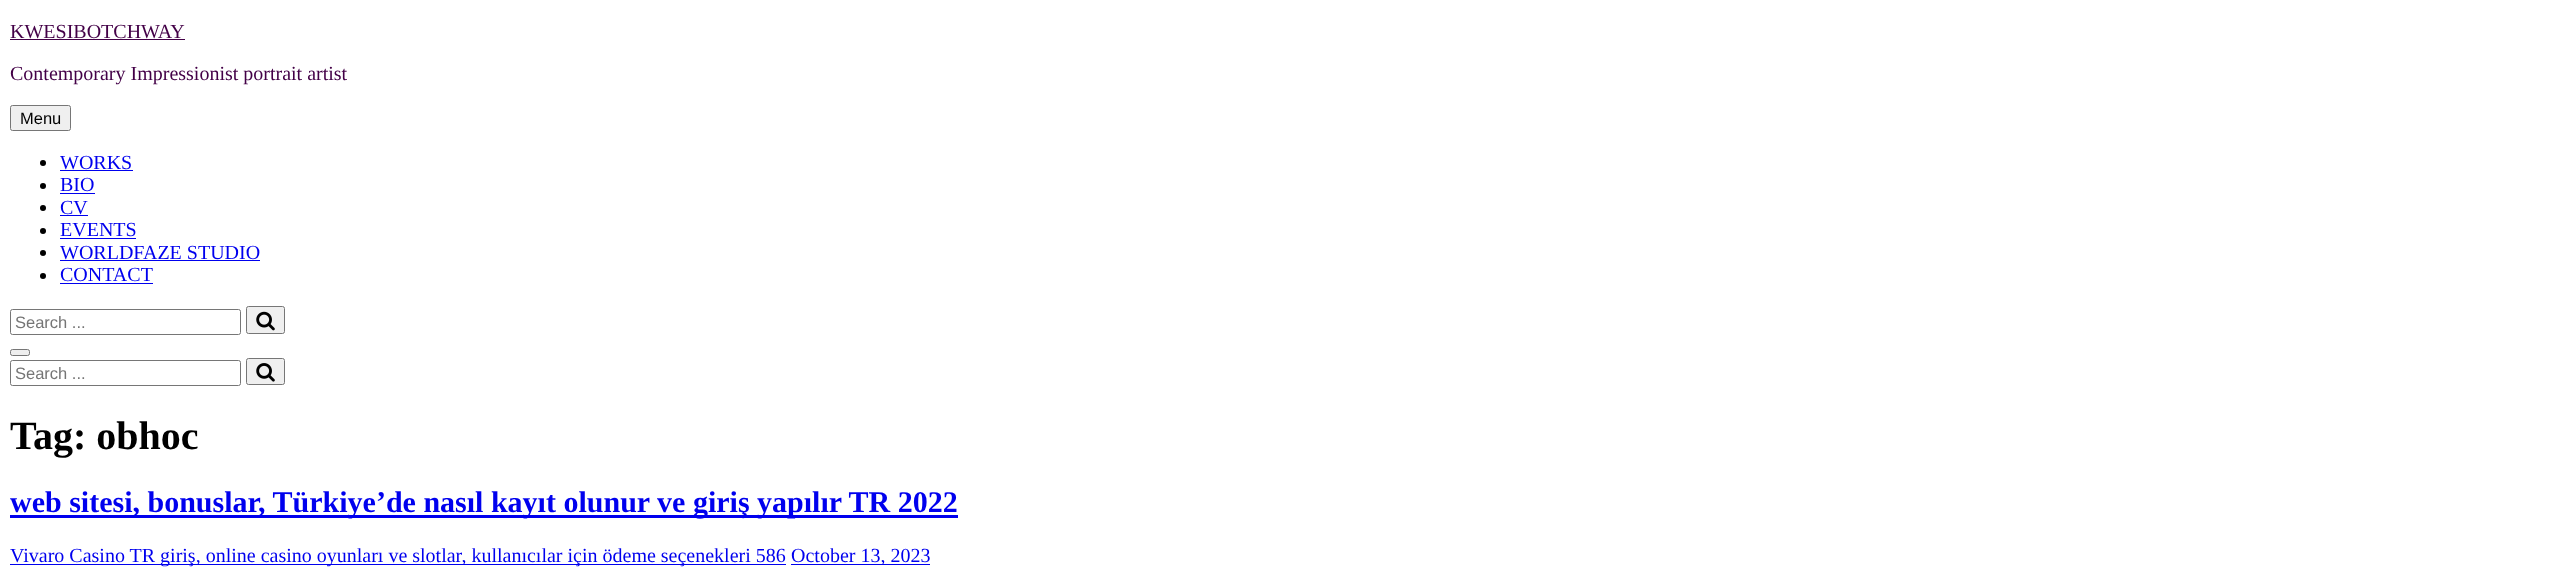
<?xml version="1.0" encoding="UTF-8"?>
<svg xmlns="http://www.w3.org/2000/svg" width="2565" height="569">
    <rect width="100%" height="100%" fill="#FFFFFF"/>
    <text x="10" y="38" font-family="Liberation Serif" font-size="20" fill="#430047">KWESIBOTCHWAY</text>
    <rect x="10" y="39" width="175" height="1" fill="#430047"/>
    <text x="10" y="80" font-family="Liberation Serif" font-size="20" fill="#430047">Contemporary Impressionist portrait artist</text>
    <rect x="10.5" y="105.5" width="60" height="25" rx="2" fill="#EFEFEF" stroke="#767676"/>
    <text x="20" y="124" font-family="Liberation Sans" font-size="16.5" fill="#000000">Menu</text>
    <circle cx="43" cy="163" r="3" fill="#000000"/>
    <text x="60" y="169" font-family="Liberation Serif" font-size="20" fill="#0000EE">WORKS</text>
    <rect x="60" y="170" width="73" height="1" fill="#0000EE"/>
    <circle cx="43" cy="186" r="3" fill="#000000"/>
    <text x="60" y="191" font-family="Liberation Serif" font-size="20" fill="#0000EE">BIO</text>
    <rect x="60" y="193" width="35" height="1" fill="#0000EE"/>
    <circle cx="43" cy="208" r="3" fill="#000000"/>
    <text x="60" y="214" font-family="Liberation Serif" font-size="20" fill="#0000EE">CV</text>
    <rect x="60" y="215" width="28" height="1" fill="#0000EE"/>
    <circle cx="43" cy="231" r="3" fill="#000000"/>
    <text x="60" y="236" font-family="Liberation Serif" font-size="20" fill="#0000EE">EVENTS</text>
    <rect x="60" y="238" width="76" height="1" fill="#0000EE"/>
    <circle cx="43" cy="253" r="3" fill="#000000"/>
    <text x="60" y="259" font-family="Liberation Serif" font-size="20" fill="#0000EE">WORLDFAZE STUDIO</text>
    <rect x="60" y="260" width="200" height="1" fill="#0000EE"/>
    <circle cx="43" cy="276" r="3" fill="#000000"/>
    <text x="60" y="281" font-family="Liberation Serif" font-size="20" fill="#0000EE">CONTACT</text>
    <rect x="60" y="283" width="93" height="1" fill="#0000EE"/>
    <rect x="10.5" y="309.5" width="230" height="25" rx="2" fill="none" stroke="#767676"/>
    <text x="15" y="328" font-family="Liberation Sans" font-size="16.5" fill="#757575">Search ...</text>
    <rect x="246.5" y="306.5" width="38" height="27" rx="2" fill="#EFEFEF" stroke="#767676"/>
    <image x="256" y="311" width="19" height="20" href="img_01.png"/>
    <rect x="10.5" y="349.5" width="19" height="6" rx="2" fill="#EFEFEF" stroke="#767676"/>
    <rect x="10.5" y="360.5" width="230" height="25" rx="2" fill="none" stroke="#767676"/>
    <text x="15" y="379" font-family="Liberation Sans" font-size="16.5" fill="#757575">Search ...</text>
    <rect x="246.5" y="358.5" width="38" height="26" rx="2" fill="#EFEFEF" stroke="#767676"/>
    <image x="256" y="363" width="19" height="19" href="img_02.png"/>
    <text x="10" y="449" font-family="Liberation Serif" font-size="40" font-weight="700" fill="#000000">Tag: obhoc</text>
    <rect x="10" y="515" width="948" height="3" fill="#0000EE"/>
    <text x="10" y="512" font-family="Liberation Serif" font-size="30" font-weight="700" fill="#0000EE">web sitesi, bonuslar, Türkiye’de nasıl kayıt olunur ve giriş yapılır TR 2022</text>
    <rect x="10" y="564" width="776" height="1" fill="#0000EE"/>
    <text x="10" y="562" font-family="Liberation Serif" font-size="20" fill="#0000EE">Vivaro Casino TR giriş, online casino oyunları ve slotlar, kullanıcılar için ödeme seçenekleri 586</text>
    <rect x="791" y="564" width="139" height="1" fill="#0000EE"/>
    <text x="791" y="562" font-family="Liberation Serif" font-size="20" fill="#0000EE">October 13, 2023</text>
</svg>
